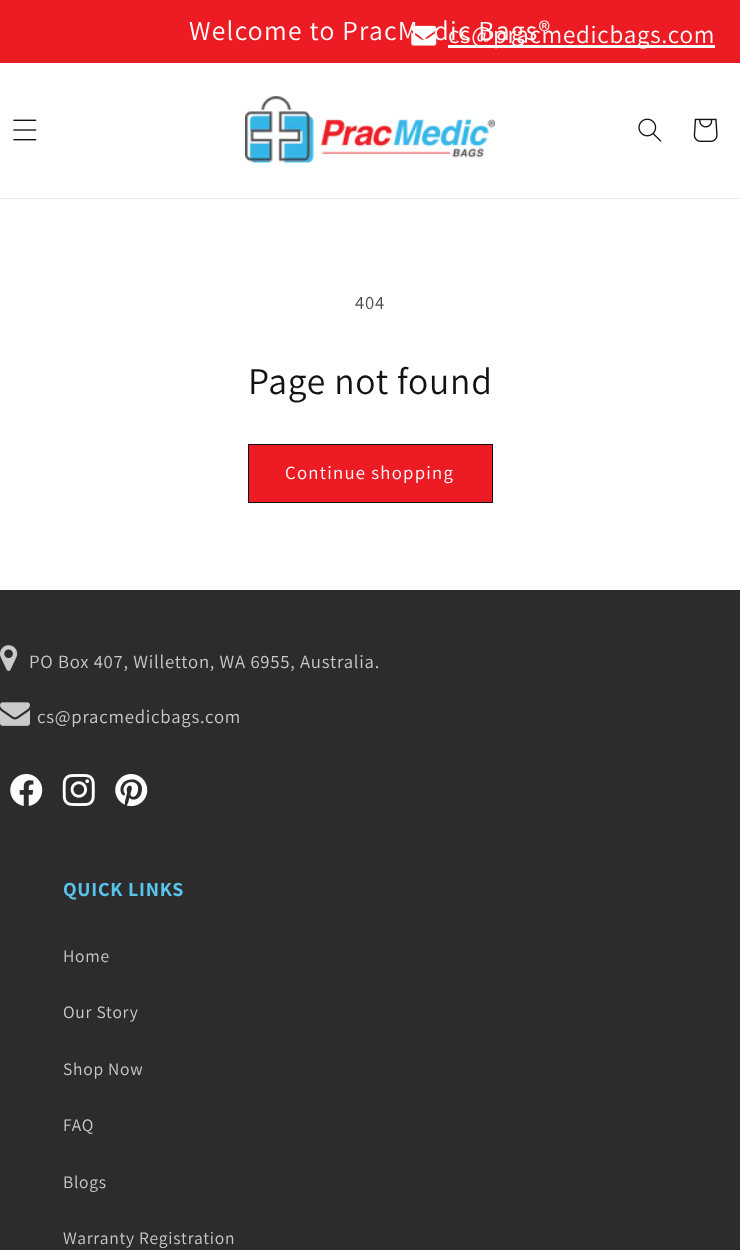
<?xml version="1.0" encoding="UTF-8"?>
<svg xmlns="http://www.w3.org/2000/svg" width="740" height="1250">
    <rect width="100%" height="100%" fill="#FFFFFF"/>
    <rect x="0" y="0" width="740" height="63" fill="#ED1B24"/>
    <rect x="0" y="61" width="740" height="1" fill="#DB1A23"/>
    <text x="189" y="40" font-family="Assistant" font-size="27.5" letter-spacing="1.25" fill="#FFFFFF">Welcome to PracMedic Bags®</text>
    <image x="411" y="25" width="26" height="21" href="img_01.png"/>
    <rect x="448" y="45" width="267" height="3" fill="#FFFFFF"/>
    <text x="448" y="43" font-family="Assistant" font-size="25" letter-spacing="0.75" fill="#FFFFFF">cs@pracmedicbags.com</text>
    <rect x="0" y="198" width="740" height="1" fill="#ECECEC"/>
    <image x="13" y="119" width="24" height="22" href="img_02.png"/>
    <image x="245" y="96" width="250" height="67" href="img_03.png"/>
    <image x="638" y="118" width="24" height="24" href="img_04.png"/>
    <image x="693" y="118" width="25" height="24" href="img_05.png"/>
    <text x="355" y="309" font-family="Assistant" font-size="18.75" letter-spacing="0.75" fill="#4D4D4D">404</text>
    <text x="248" y="394" font-family="Assistant" font-size="37.5" letter-spacing="0.75" fill="#121212">Page not found</text>
    <rect x="249" y="445" width="243" height="57" fill="#ED1B24"/>
    <rect x="248.5" y="444.5" width="244" height="58" fill="none" stroke="#121212"/>
    <text x="285" y="479" font-family="Assistant" font-size="18.75" letter-spacing="1.25" fill="#FFFFFF">Continue shopping</text>
    <rect x="0" y="590" width="740" height="660" fill="#2C2C2C"/>
    <image x="0" y="645" width="18" height="26" href="img_06.png"/>
    <text x="29" y="668" font-family="Assistant" font-size="18.75" letter-spacing="0.75" fill="#CACACA">PO Box 407, Willetton, WA 6955, Australia.</text>
    <image x="0" y="702" width="30" height="24" href="img_07.png"/>
    <text x="37" y="723" font-family="Assistant" font-size="18.75" letter-spacing="0.75" fill="#CACACA">cs@pracmedicbags.com</text>
    <image x="10" y="774" width="33" height="32" href="img_08.png"/>
    <image x="62" y="774" width="33" height="32" href="img_09.png"/>
    <image x="115" y="774" width="33" height="33" href="img_10.png"/>
    <text x="63" y="896" font-family="Assistant" font-size="20" font-weight="700" letter-spacing="0.75" fill="#59C3EB">QUICK LINKS</text>
    <text x="63" y="962" font-family="Assistant" font-size="17.5" letter-spacing="0.75" fill="#CACACA">Home</text>
    <text x="63" y="1018" font-family="Assistant" font-size="17.5" letter-spacing="0.75" fill="#CACACA">Our Story</text>
    <text x="63" y="1075" font-family="Assistant" font-size="17.5" letter-spacing="0.75" fill="#CACACA">Shop Now</text>
    <text x="63" y="1131" font-family="Assistant" font-size="17.5" letter-spacing="0.75" fill="#CACACA">FAQ</text>
    <text x="63" y="1188" font-family="Assistant" font-size="17.5" letter-spacing="0.75" fill="#CACACA">Blogs</text>
    <text x="63" y="1244" font-family="Assistant" font-size="17.5" letter-spacing="0.75" fill="#CACACA">Warranty Registration</text>
</svg>
